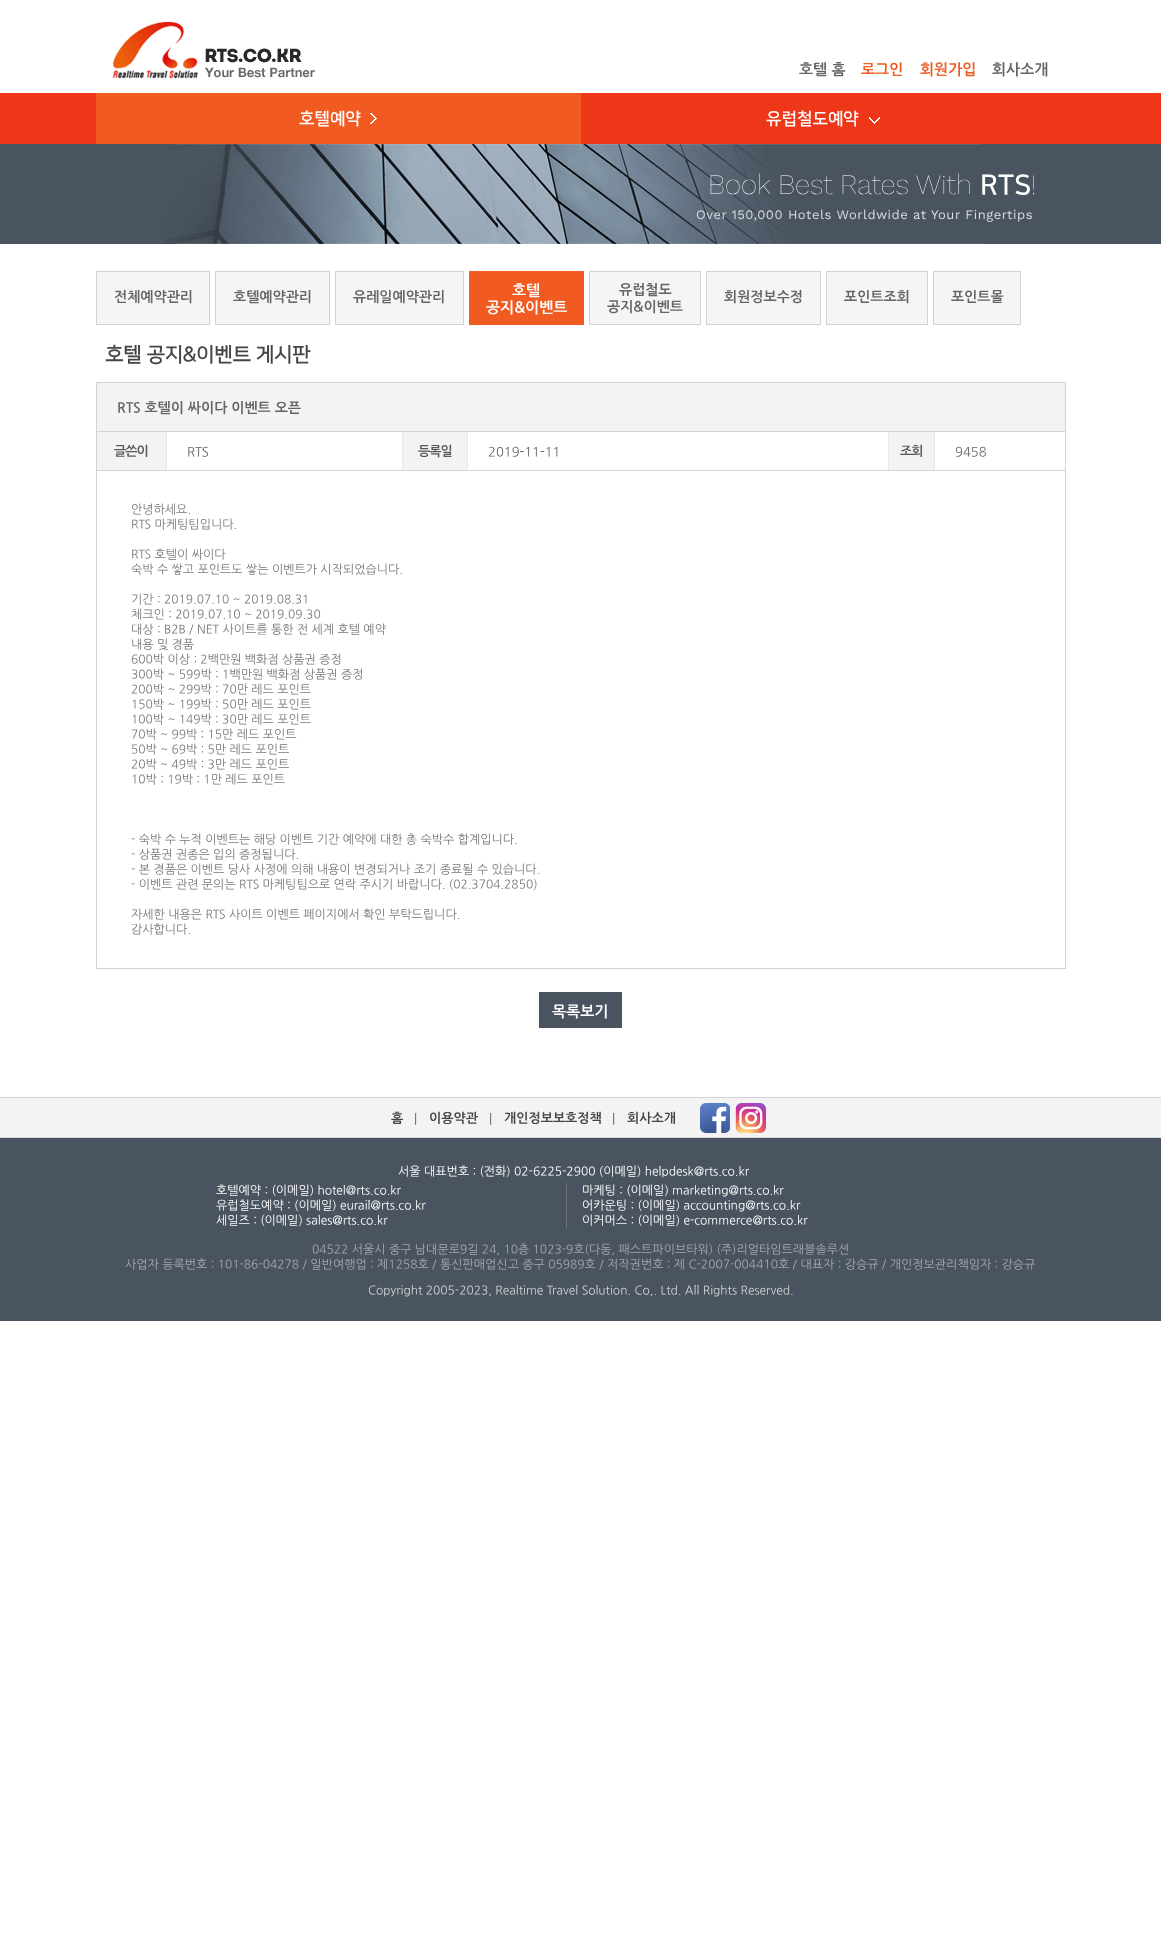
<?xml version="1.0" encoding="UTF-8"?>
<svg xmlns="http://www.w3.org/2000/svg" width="1161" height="1959">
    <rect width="100%" height="100%" fill="#FFFFFF"/>
    <image x="112" y="21" width="203" height="58" href="img_01.png"/>
    <text x="799" y="74" font-family="NanumGothic" font-size="15" font-weight="700" fill="#656565">호텔 홈</text>
    <text x="861" y="74" font-family="NanumGothic" font-size="15" font-weight="700" fill="#F15A21">로그인</text>
    <text x="920" y="74" font-family="NanumGothic" font-size="15" font-weight="700" fill="#F15A21">회원가입</text>
    <text x="992" y="74" font-family="NanumGothic" font-size="15" font-weight="700" fill="#656565">회사소개</text>
    <rect x="0" y="93" width="1161" height="51" fill="#EE3618"/>
    <rect x="96" y="93" width="485" height="51" fill="#F15A21"/>
    <text x="299" y="124" font-family="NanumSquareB" font-size="17" font-weight="700" fill="#FFFFFF">호텔예약</text>
    <image x="370" y="113" width="7" height="11" href="img_02.png"/>
    <text x="766" y="124" font-family="NanumSquareB" font-size="17" font-weight="700" fill="#FFFFFF">유럽철도예약</text>
    <image x="869" y="117" width="11" height="7" href="img_03.png"/>
    <rect x="0" y="144" width="1161" height="100" fill="#495460"/>
    <image x="164" y="144" width="818" height="100" href="img_04.png"/>
    <text x="708" y="194" font-family="Work Sans" font-size="28" font-weight="100" fill="#FFFFFF">Book Best Rates With</text>
    <text x="980" y="194" font-family="NanumSquareB" font-size="28" font-weight="700" fill="#FFFFFF">RTS</text>
    <text x="1031" y="194" font-family="Work Sans" font-size="28" font-weight="100" fill="#FFFFFF">!</text>
    <text x="696" y="219" font-family="Work Sans" font-size="13" letter-spacing="0.5" fill="#DBDDE0">Over 150,000 Hotels Worldwide at Your Fingertips</text>
    <rect x="96.5" y="271.5" width="113" height="53" fill="#F5F5F5" stroke="#D2D2D2"/>
    <text x="114" y="301" font-family="NanumGothic" font-size="14" font-weight="700" fill="#656565">전체예약관리</text>
    <rect x="215.5" y="271.5" width="114" height="53" fill="#F5F5F5" stroke="#D2D2D2"/>
    <text x="233" y="301" font-family="NanumGothic" font-size="14" font-weight="700" fill="#656565">호텔예약관리</text>
    <rect x="335.5" y="271.5" width="128" height="53" fill="#F5F5F5" stroke="#D2D2D2"/>
    <text x="353" y="301" font-family="NanumGothic" font-size="14" font-weight="700" fill="#656565">유레일예약관리</text>
    <rect x="469" y="271" width="115" height="54" fill="#F15A21"/>
    <text x="512" y="295" font-family="NanumGothic" font-size="15" font-weight="700" fill="#FFFFFF">호텔</text>
    <text x="486" y="312" font-family="NanumGothic" font-size="15" font-weight="700" fill="#FFFFFF">공지&amp;이벤트</text>
    <rect x="589.5" y="271.5" width="111" height="53" fill="#F5F5F5" stroke="#D2D2D2"/>
    <text x="619" y="294" font-family="NanumGothic" font-size="14" font-weight="700" fill="#656565">유럽철도</text>
    <text x="607" y="311" font-family="NanumGothic" font-size="14" font-weight="700" fill="#656565">공지&amp;이벤트</text>
    <rect x="706.5" y="271.5" width="114" height="53" fill="#F5F5F5" stroke="#D2D2D2"/>
    <text x="724" y="301" font-family="NanumGothic" font-size="14" font-weight="700" fill="#656565">회원정보수정</text>
    <rect x="826.5" y="271.5" width="101" height="53" fill="#F5F5F5" stroke="#D2D2D2"/>
    <text x="844" y="301" font-family="NanumGothic" font-size="14" font-weight="700" fill="#656565">포인트조회</text>
    <rect x="933.5" y="271.5" width="87" height="53" fill="#F5F5F5" stroke="#D2D2D2"/>
    <text x="951" y="301" font-family="NanumGothic" font-size="14" font-weight="700" fill="#656565">포인트몰</text>
    <text x="105" y="361" font-family="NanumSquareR" font-size="20" font-weight="700" fill="#454545">호텔 공지&amp;이벤트 게시판</text>
    <rect x="96" y="382" width="970" height="1" fill="#D3D3D3"/>
    <rect x="1065" y="382" width="1" height="587" fill="#D3D3D3"/>
    <rect x="96" y="968" width="970" height="1" fill="#D3D3D3"/>
    <rect x="96" y="382" width="1" height="587" fill="#D3D3D3"/>
    <rect x="97" y="383" width="968" height="48" fill="#F3F3F3"/>
    <rect x="96" y="470" width="970" height="1" fill="#D3D3D3"/>
    <rect x="166" y="431" width="1" height="40" fill="#E7E7E7"/>
    <rect x="467" y="431" width="1" height="40" fill="#E7E7E7"/>
    <rect x="402" y="431" width="1" height="40" fill="#E7E7E7"/>
    <rect x="934" y="431" width="1" height="40" fill="#E7E7E7"/>
    <rect x="888" y="431" width="1" height="40" fill="#E7E7E7"/>
    <rect x="96" y="431" width="970" height="1" fill="#D3D3D3"/>
    <text x="117" y="412" font-family="NanumGothic" font-size="14" font-weight="700" fill="#656565">RTS 호텔이 싸이다 이벤트 오픈</text>
    <rect x="97" y="432" width="69" height="38" fill="#F3F3F3"/>
    <text x="114" y="455" font-family="NanumGothic" font-size="13" font-weight="700" letter-spacing="-1" fill="#585858">글쓴이</text>
    <rect x="402" y="470" width="1" height="1" fill="#D3D3D3"/>
    <text x="187" y="456" font-family="NanumGothic" font-size="13" fill="#656565">RTS</text>
    <rect x="403" y="432" width="64" height="38" fill="#F3F3F3"/>
    <text x="418" y="455" font-family="NanumGothic" font-size="13" font-weight="700" letter-spacing="-1" fill="#585858">등록일</text>
    <rect x="888" y="470" width="1" height="1" fill="#D3D3D3"/>
    <text x="488" y="456" font-family="NanumGothic" font-size="13" fill="#656565">2019-11-11</text>
    <rect x="889" y="432" width="45" height="38" fill="#F3F3F3"/>
    <text x="900" y="455" font-family="NanumGothic" font-size="13" font-weight="700" letter-spacing="-1" fill="#585858">조회</text>
    <text x="955" y="456" font-family="NanumGothic" font-size="13" fill="#656565">9458</text>
    <text font-family="NanumGothic" font-size="12" fill="#787878">
        <tspan x="131" y="513">안녕하세요.</tspan>
        <tspan x="131" y="528">RTS 마케팅팀입니다.</tspan>
    </text>
    <text font-family="NanumGothic" font-size="12" fill="#787878">
        <tspan x="131" y="558">RTS 호텔이 싸이다</tspan>
        <tspan x="131" y="573">숙박 수 쌓고 포인트도 쌓는 이벤트가 시작되었습니다.</tspan>
    </text>
    <text font-family="NanumGothic" font-size="12" fill="#787878">
        <tspan x="131" y="603">기간 : 2019.07.10 ~ 2019.08.31</tspan>
        <tspan x="131" y="618">체크인 : 2019.07.10 ~ 2019.09.30</tspan>
        <tspan x="131" y="633">대상 : B2B / NET 사이트를 통한 전 세계 호텔 예약</tspan>
        <tspan x="131" y="648">내용 및 경품</tspan>
        <tspan x="131" y="663">600박 이상 : 2백만원 백화점 상품권 증정</tspan>
        <tspan x="131" y="678">300박 ~ 599박 : 1백만원 백화점 상품권 증정</tspan>
        <tspan x="131" y="693">200박 ~ 299박 : 70만 레드 포인트</tspan>
        <tspan x="131" y="708">150박 ~ 199박 : 50만 레드 포인트</tspan>
        <tspan x="131" y="723">100박 ~ 149박 : 30만 레드 포인트</tspan>
        <tspan x="131" y="738">70박 ~ 99박 : 15만 레드 포인트</tspan>
        <tspan x="131" y="753">50박 ~ 69박 : 5만 레드 포인트</tspan>
        <tspan x="131" y="768">20박 ~ 49박 : 3만 레드 포인트</tspan>
        <tspan x="131" y="783">10박 : 19박 : 1만 레드 포인트</tspan>
    </text>
    <text font-family="NanumGothic" font-size="12" fill="#787878">
        <tspan x="131" y="843">- 숙박 수 누적 이벤트는 해당 이벤트 기간 예약에 대한 총 숙박수 합계입니다.</tspan>
        <tspan x="131" y="858">- 상품권 권종은 입의 증정됩니다.</tspan>
        <tspan x="131" y="873">- 본 경품은 이벤트 당사 사정에 의해 내용이 변경되거나 조기 종료될 수 있습니다.</tspan>
        <tspan x="131" y="888">- 이벤트 관련 문의는 RTS 마케팅팀으로 연락 주시기 바랍니다. (02.3704.2850)</tspan>
    </text>
    <text font-family="NanumGothic" font-size="12" fill="#787878">
        <tspan x="131" y="918">자세한 내용은 RTS 사이트 이벤트 페이지에서 확인 부탁드립니다.</tspan>
        <tspan x="131" y="933">감사합니다.</tspan>
    </text>
    <rect x="539" y="992" width="83" height="36" fill="#495460"/>
    <text x="552" y="1016" font-family="NanumGothic" font-size="15" font-weight="700" fill="#FFFFFF">목록보기</text>
    <rect x="0" y="1098" width="1161" height="39" fill="#F3F3F3"/>
    <rect x="0" y="1097" width="1161" height="1" fill="#D3D3D3"/>
    <image x="415" y="1113" width="2" height="12" href="img_05.png"/>
    <text x="391" y="1122" font-family="NanumGothic" font-size="13" font-weight="700" fill="#454545">홈</text>
    <image x="490" y="1113" width="2" height="12" href="img_05.png"/>
    <text x="429" y="1122" font-family="NanumGothic" font-size="13" font-weight="700" fill="#454545">이용약관</text>
    <image x="613" y="1113" width="2" height="12" href="img_05.png"/>
    <text x="504" y="1122" font-family="NanumGothic" font-size="13" font-weight="700" fill="#454545">개인정보보호정책</text>
    <text x="627" y="1122" font-family="NanumGothic" font-size="13" font-weight="700" fill="#454545">회사소개</text>
    <image x="700" y="1103" width="30" height="30" href="img_06.png"/>
    <image x="735" y="1103" width="31" height="30" href="img_07.png"/>
    <rect x="0" y="1138" width="1161" height="183" fill="#495460"/>
    <rect x="0" y="1137" width="1161" height="1" fill="#D3D3D3"/>
    <text x="398" y="1175" font-family="NanumGothic" font-size="12" fill="#FFFFFF">서울 대표번호 : (전화) 02-6225-2900 (이메일) helpdesk@rts.co.kr</text>
    <rect x="566" y="1183" width="1" height="45" fill="#6D7680"/>
    <text font-family="NanumGothic" font-size="12" fill="#FFFFFF">
        <tspan x="216" y="1194">호텔예약 : (이메일) hotel@rts.co.kr</tspan>
        <tspan x="216" y="1209">유럽철도예약 : (이메일) eurail@rts.co.kr</tspan>
        <tspan x="216" y="1224">세일즈 : (이메일) sales@rts.co.kr</tspan>
    </text>
    <text font-family="NanumGothic" font-size="12" fill="#FFFFFF">
        <tspan x="582" y="1194">마케팅 : (이메일) marketing@rts.co.kr</tspan>
        <tspan x="582" y="1209">어카운팅 : (이메일) accounting@rts.co.kr</tspan>
        <tspan x="582" y="1224">이커머스 : (이메일) e-commerce@rts.co.kr</tspan>
    </text>
    <text x="312" y="1253" font-family="NanumGothic" font-size="12" fill="#A4AAB0">04522 서울시 중구 남대문로9길 24, 10층 1023-9호(다동, 패스트파이브타워) (주)리얼타임트래블솔루션</text>
    <text x="125" y="1268" font-family="NanumGothic" font-size="12" fill="#A4AAB0">사업자 등록번호 : 101-86-04278 / 일반여행업 : 제1258호 / 통신판매업신고 중구 05989호 / 저작권번호 : 제 C-2007-004410호 / 대표자 : 강승규 / 개인정보관리책임자 : 강승규</text>
    <text x="368" y="1294" font-family="NanumGothic" font-size="12" fill="#D2D2D2">Copyright 2005-2023, Realtime Travel Solution. Co,. Ltd. All Rights Reserved.</text>
</svg>
